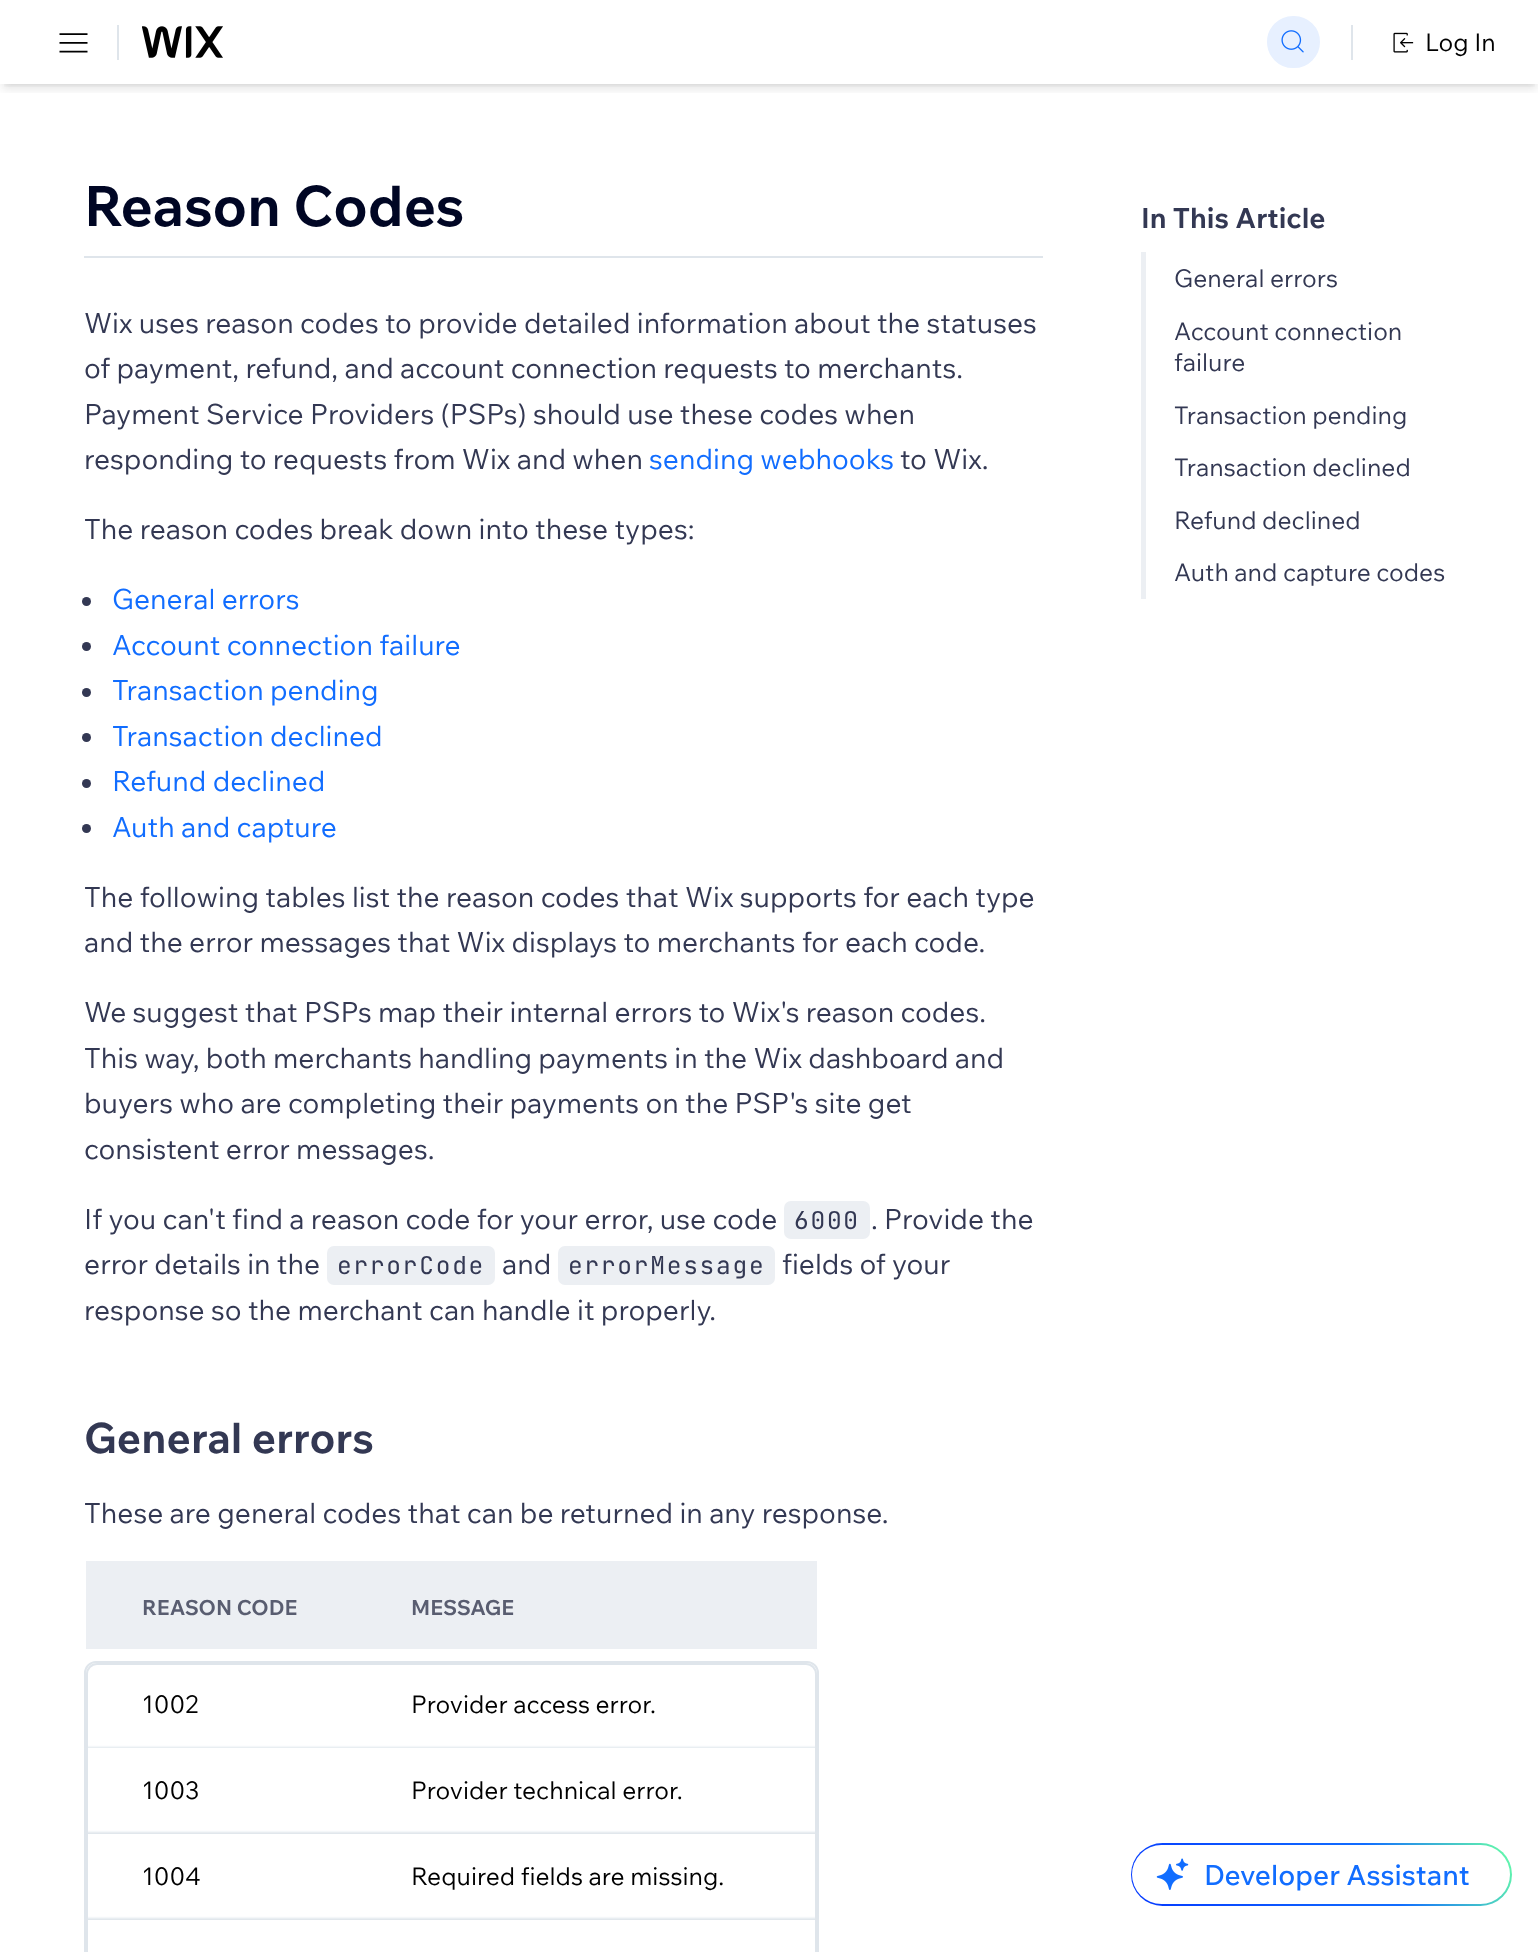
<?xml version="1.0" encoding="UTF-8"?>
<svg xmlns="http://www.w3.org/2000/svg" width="1538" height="1952">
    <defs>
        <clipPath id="clip1"><rect x="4" y="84" width="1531" height="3"/></clipPath>
        <filter id="blur1" x="-50%" y="-200%" width="200%" height="500%"><feGaussianBlur stdDeviation="3.5"/></filter>
        <clipPath id="clip2"><rect x="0" y="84" width="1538" height="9"/></clipPath>
        <filter id="blur2" x="-50%" y="-200%" width="200%" height="500%"><feGaussianBlur stdDeviation="5"/></filter>
        <clipPath id="clip3"><path d="M 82 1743 H 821 V 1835 H 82 Z M 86 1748 H 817 V 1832 H 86 Z" clip-rule="evenodd"/></clipPath>
        <filter id="blur3" x="-50%" y="-200%" width="200%" height="500%"><feGaussianBlur stdDeviation="1"/></filter>
        <clipPath id="clip4"><path d="M 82 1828 H 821 V 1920 H 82 Z M 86 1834 H 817 V 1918 H 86 Z" clip-rule="evenodd"/></clipPath>
        <clipPath id="clip5"><path d="M 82 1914 H 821 V 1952 H 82 Z M 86 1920 H 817 V 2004 H 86 Z" clip-rule="evenodd"/></clipPath>
        <linearGradient id="g1" gradientUnits="userSpaceOnUse" x1="1067" y1="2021" x2="1478" y2="1784"><stop offset="0" stop-color="#0021FF"/><stop offset="0.73" stop-color="#116DFF"/><stop offset="0.97" stop-color="#5FF2AE"/></linearGradient>
    </defs>
    <rect width="100%" height="100%" fill="#FFFFFF"/>
    <g clip-path="url(#clip1)">
        <rect x="4" y="7" width="1531" height="77" fill="#000000" fill-opacity="0.1" filter="url(#blur1)"/>
    </g>
    <g clip-path="url(#clip2)">
        <rect x="2" y="9" width="1535" height="80" fill="#000000" fill-opacity="0.1" filter="url(#blur2)"/>
    </g>
    <image x="59" y="33" width="29" height="20" href="img_01.png"/>
    <rect x="117" y="25" width="2" height="35" fill="#DFE5EB"/>
    <image x="142" y="26" width="81" height="32" href="img_02.png"/>
    <rect x="1268" y="17" width="51" height="50" rx="25" fill="#E7F0FF" stroke="#E7F0FF" stroke-width="2"/>
    <image x="1281" y="30" width="23" height="23" href="img_03.png"/>
    <rect x="1351" y="25" width="2" height="35" fill="#DFE5EB"/>
    <image x="1393" y="32" width="21" height="21" href="img_04.png"/>
    <text x="1425" y="51" font-family="Wix Madefor Text" font-size="24.5" fill="#000000">Log In</text>
    <rect x="84" y="256" width="959" height="2" fill="#DFE5EB"/>
    <text x="84" y="226" font-family="'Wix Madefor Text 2'" font-size="56" font-weight="700" fill="#000624">Reason Codes</text>
    <text x="1141" y="228" font-family="'Wix Madefor Text 2'" font-size="28" font-weight="700" fill="#333853">In This Article</text>
    <rect x="1141" y="252" width="5" height="347" fill="#ECEFF3"/>
    <text x="1174" y="287" font-family="Wix Madefor Text" font-size="24.5" fill="#333853">General errors</text>
    <text font-family="Wix Madefor Text" font-size="24.5" fill="#333853">
        <tspan x="1174" y="340">Account connection</tspan>
        <tspan x="1174" y="371">failure</tspan>
    </text>
    <text x="1174" y="424" font-family="Wix Madefor Text" font-size="24.5" fill="#333853">Transaction pending</text>
    <text x="1174" y="476" font-family="Wix Madefor Text" font-size="24.5" fill="#333853">Transaction declined</text>
    <text x="1174" y="529" font-family="Wix Madefor Text" font-size="24.5" fill="#333853">Refund declined</text>
    <text x="1174" y="581" font-family="Wix Madefor Text" font-size="24.5" fill="#333853">Auth and capture codes</text>
    <text font-family="Wix Madefor Text" font-size="28" fill="#333853">
        <tspan x="84" y="333">Wix uses reason codes to provide detailed information about the statuses</tspan>
        <tspan x="84" y="378">of payment, refund, and account connection requests to merchants.</tspan>
        <tspan x="84" y="424">Payment Service Providers (PSPs) should use these codes when</tspan>
        <tspan x="84" y="469">responding to requests from Wix and when</tspan>
    </text>
    <text x="649" y="469" font-family="Wix Madefor Text" font-size="28" fill="#116DFF">sending webhooks</text>
    <text x="900" y="469" font-family="Wix Madefor Text" font-size="28" fill="#333853">to Wix.</text>
    <text x="84" y="539" font-family="Wix Madefor Text" font-size="28" fill="#333853">The reason codes break down into these types:</text>
    <circle cx="86.5" cy="601.5" r="4.5" fill="#333853"/>
    <text x="112" y="609" font-family="Wix Madefor Text" font-size="28" fill="#116DFF">General errors</text>
    <circle cx="86.5" cy="646.5" r="4.5" fill="#333853"/>
    <text x="112" y="655" font-family="Wix Madefor Text" font-size="28" fill="#116DFF">Account connection failure</text>
    <circle cx="86.5" cy="692.5" r="4.5" fill="#333853"/>
    <text x="112" y="700" font-family="Wix Madefor Text" font-size="28" fill="#116DFF">Transaction pending</text>
    <circle cx="86.5" cy="737.5" r="4.5" fill="#333853"/>
    <text x="112" y="746" font-family="Wix Madefor Text" font-size="28" fill="#116DFF">Transaction declined</text>
    <circle cx="86.5" cy="783.5" r="4.5" fill="#333853"/>
    <text x="112" y="791" font-family="Wix Madefor Text" font-size="28" fill="#116DFF">Refund declined</text>
    <circle cx="86.5" cy="828.5" r="4.5" fill="#333853"/>
    <text x="112" y="837" font-family="Wix Madefor Text" font-size="28" fill="#116DFF">Auth and capture</text>
    <text font-family="Wix Madefor Text" font-size="28" fill="#333853">
        <tspan x="84" y="907">The following tables list the reason codes that Wix supports for each type</tspan>
        <tspan x="84" y="952">and the error messages that Wix displays to merchants for each code.</tspan>
    </text>
    <text font-family="Wix Madefor Text" font-size="28" fill="#333853">
        <tspan x="84" y="1022">We suggest that PSPs map their internal errors to Wix's reason codes.</tspan>
        <tspan x="84" y="1068">This way, both merchants handling payments in the Wix dashboard and</tspan>
        <tspan x="84" y="1113">buyers who are completing their payments on the PSP's site get</tspan>
        <tspan x="84" y="1159">consistent error messages.</tspan>
    </text>
    <text x="84" y="1229" font-family="Wix Madefor Text" font-size="28" fill="#333853">If you can't find a reason code for your error, use code</text>
    <rect x="784" y="1201" width="86" height="38" rx="7" fill="#ECEFF3"/>
    <text x="794" y="1229" font-family="JetBrains Mono" font-size="24.5" letter-spacing="1.75" fill="#333853">6000</text>
    <text x="871" y="1229" font-family="Wix Madefor Text" font-size="28" fill="#333853">. Provide the</text>
    <text x="84" y="1274" font-family="Wix Madefor Text" font-size="28" fill="#333853">error details in the</text>
    <rect x="327" y="1246" width="168" height="39" rx="7" fill="#ECEFF3"/>
    <text x="337" y="1274" font-family="JetBrains Mono" font-size="24.5" letter-spacing="1.75" fill="#333853">errorCode</text>
    <text x="502" y="1274" font-family="Wix Madefor Text" font-size="28" fill="#333853">and</text>
    <rect x="558" y="1246" width="217" height="39" rx="7" fill="#ECEFF3"/>
    <text x="568" y="1274" font-family="JetBrains Mono" font-size="24.5" letter-spacing="1.75" fill="#333853">errorMessage</text>
    <text x="782" y="1274" font-family="Wix Madefor Text" font-size="28" fill="#333853">fields of your</text>
    <text x="84" y="1320" font-family="Wix Madefor Text" font-size="28" fill="#333853">response so the merchant can handle it properly.</text>
    <text x="84" y="1453" font-family="'Wix Madefor Text 2'" font-size="42" font-weight="700" fill="#333853">General errors</text>
    <text x="84" y="1523" font-family="Wix Madefor Text" font-size="28" fill="#333853">These are general codes that can be returned in any response.</text>
    <rect x="86" y="1561" width="731" height="88" fill="#ECEFF3"/>
    <text x="142" y="1615" font-family="Wix Madefor Text" font-size="21" font-weight="700" fill="#595D70">REASON CODE</text>
    <text x="411" y="1615" font-family="Wix Madefor Text" font-size="21" font-weight="700" fill="#595D70">MESSAGE</text>
    <rect x="85" y="1662" width="733" height="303" rx="11" fill="none" stroke="#DFE5EB" stroke-width="2"/>
    <rect x="87" y="1664" width="729" height="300" rx="10" fill="none" stroke="#DFE5EB" stroke-width="2"/>
    <text x="142" y="1713" font-family="Wix Madefor Text" font-size="24.5" fill="#000000">1002</text>
    <text x="411" y="1713" font-family="Wix Madefor Text" font-size="24.5" fill="#000000">Provider access error.</text>
    <g clip-path="url(#clip3)">
        <rect x="86" y="1747" width="731" height="84" fill="#DFE5EB" filter="url(#blur3)"/>
    </g>
    <text x="142" y="1799" font-family="Wix Madefor Text" font-size="24.5" fill="#000000">1003</text>
    <text x="411" y="1799" font-family="Wix Madefor Text" font-size="24.5" fill="#000000">Provider technical error.</text>
    <g clip-path="url(#clip4)">
        <rect x="86" y="1832" width="731" height="84" fill="#DFE5EB" filter="url(#blur3)"/>
    </g>
    <text x="142" y="1885" font-family="Wix Madefor Text" font-size="24.5" fill="#000000">1004</text>
    <text x="411" y="1885" font-family="Wix Madefor Text" font-size="24.5" fill="#000000">Required fields are missing.</text>
    <g clip-path="url(#clip5)">
        <rect x="86" y="1918" width="731" height="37" fill="#DFE5EB" filter="url(#blur3)"/>
    </g>
    <rect x="1131" y="1843" width="381" height="63" rx="31.5" fill="url(#g1)"/>
    <rect x="1132" y="1845" width="378" height="59" rx="29.5" fill="#FFFFFF"/>
    <image x="1156" y="1858" width="33" height="32" href="img_05.png"/>
    <text x="1204" y="1885" font-family="Wix Madefor Text" font-size="28" font-weight="500" fill="#116DFF">Developer Assistant</text>
</svg>
